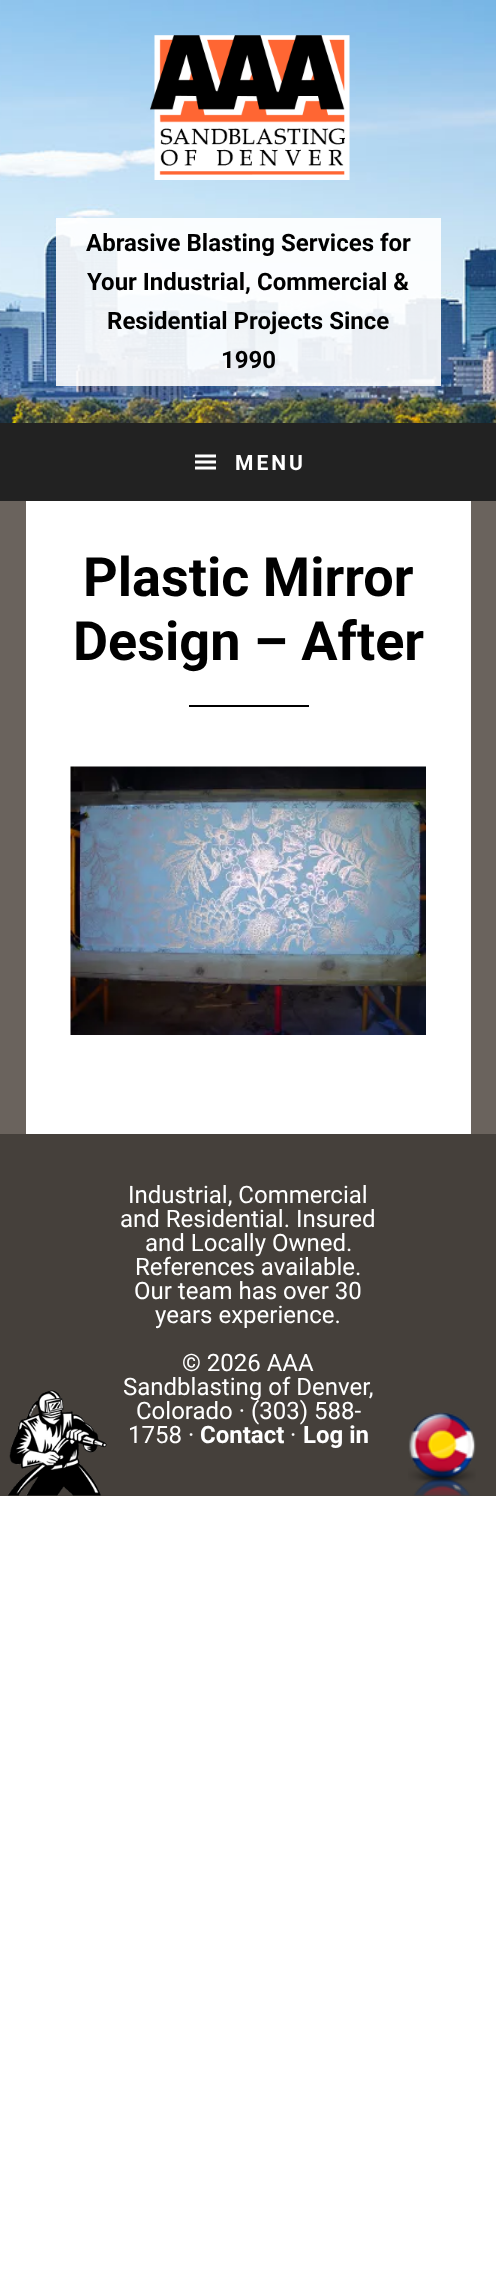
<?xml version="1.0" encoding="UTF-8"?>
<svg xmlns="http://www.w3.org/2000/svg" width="496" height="2279">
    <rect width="100%" height="100%" fill="#FFFFFF"/>
    <image x="0" y="0" width="496" height="423" href="img_01.png"/>
    <image x="150" y="35" width="200" height="145" href="img_02.png"/>
    <rect x="56" y="218" width="385" height="168" fill="#FFFFFF" fill-opacity="0.9"/>
    <text x="86" y="251" font-family="Roboto" font-size="24" font-weight="700" fill="#000000">Abrasive Blasting Services for</text>
    <text x="87" y="290" font-family="Roboto" font-size="24" font-weight="700" fill="#000000">Your Industrial, Commercial &amp;</text>
    <text x="107" y="329" font-family="Roboto" font-size="24" font-weight="700" fill="#000000">Residential Projects Since</text>
    <text x="221" y="368" font-family="Roboto" font-size="24" font-weight="700" fill="#000000">1990</text>
    <rect x="0" y="423" width="496" height="78" fill="#222222"/>
    <image x="195" y="454" width="21" height="16" href="img_03.png"/>
    <text x="235" y="470" font-family="Roboto" font-size="21" font-weight="700" letter-spacing="3" fill="#FFFFFF">MENU</text>
    <rect x="0" y="501" width="496" height="633" fill="#6A635D"/>
    <rect x="26" y="501" width="445" height="633" fill="#FFFFFF"/>
    <text x="83" y="596" font-family="Roboto" font-size="54" font-weight="700" fill="#000000">Plastic Mirror</text>
    <text x="73" y="660" font-family="Roboto" font-size="54" font-weight="700" fill="#000000">Design – After</text>
    <rect x="189" y="705" width="120" height="2" fill="#000000"/>
    <image x="70" y="766" width="356" height="269" href="img_04.png"/>
    <rect x="0" y="1134" width="496" height="362" fill="#45403B"/>
    <image x="8" y="1390" width="468" height="106" href="img_05.png"/>
    <text x="128" y="1203" font-family="Roboto" font-size="24" fill="#FFFFFF">Industrial, Commercial</text>
    <text x="120" y="1227" font-family="Roboto" font-size="24" fill="#FFFFFF">and Residential. Insured</text>
    <text x="145" y="1251" font-family="Roboto" font-size="24" fill="#FFFFFF">and Locally Owned.</text>
    <text x="135" y="1275" font-family="Roboto" font-size="24" fill="#FFFFFF">References available.</text>
    <text x="134" y="1299" font-family="Roboto" font-size="24" fill="#FFFFFF">Our team has over 30</text>
    <text x="155" y="1323" font-family="Roboto" font-size="24" fill="#FFFFFF">years experience.</text>
    <text x="182" y="1371" font-family="Roboto" font-size="24" fill="#FFFFFF">© 2026 AAA</text>
    <text x="123" y="1395" font-family="Roboto" font-size="24" fill="#FFFFFF">Sandblasting of Denver,</text>
    <text x="136" y="1419" font-family="Roboto" font-size="24" fill="#FFFFFF">Colorado · (303) 588-</text>
    <text x="128" y="1443" font-family="Roboto" font-size="24" fill="#FFFFFF">1758 ·</text>
    <text x="200" y="1443" font-family="Roboto" font-size="24" font-weight="700" fill="#FFFFFF">Contact</text>
    <text x="290" y="1443" font-family="Roboto" font-size="24" fill="#FFFFFF">·</text>
    <text x="303" y="1443" font-family="Roboto" font-size="24" font-weight="700" fill="#FFFFFF">Log in</text>
</svg>
